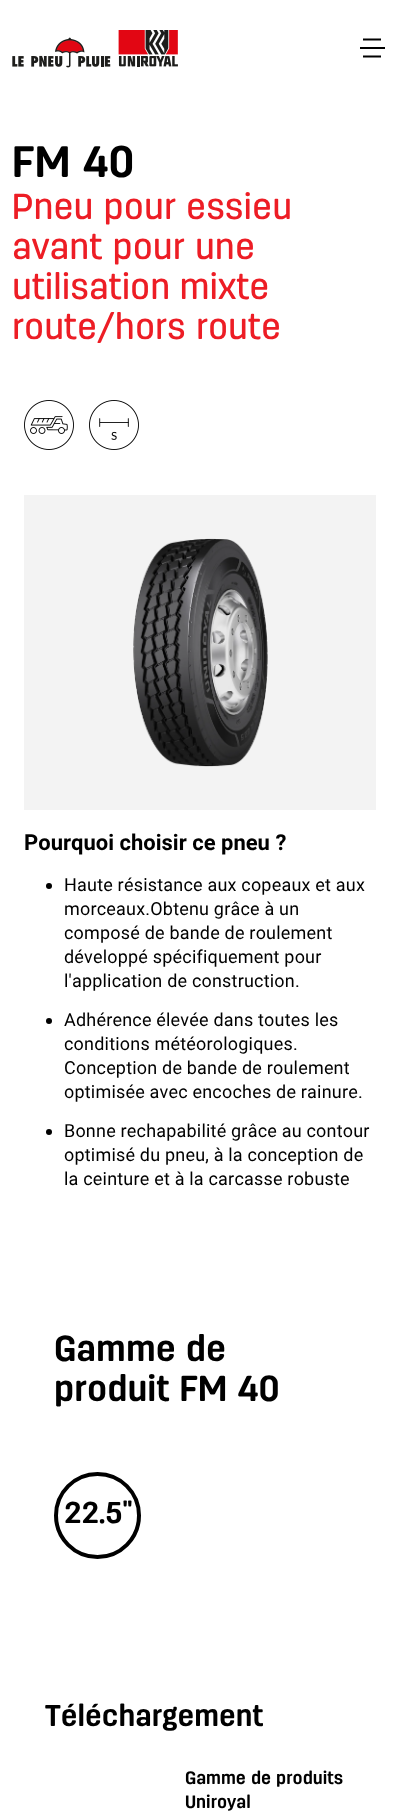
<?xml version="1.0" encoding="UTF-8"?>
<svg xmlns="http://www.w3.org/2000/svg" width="415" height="1815">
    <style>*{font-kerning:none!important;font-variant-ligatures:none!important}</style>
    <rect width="100%" height="100%" fill="#FFFFFF"/>
    <image x="12" y="30" width="166" height="38" href="img_01.png"/>
    <path d="M 364 39.5 H 380 M 364 56.5 H 380" fill="none" stroke="#000000" stroke-width="2" stroke-linecap="square"/>
    <rect x="360" y="47" width="25" height="2" fill="#000000"/>
    <text x="12" y="177" font-family="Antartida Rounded" font-size="44" font-weight="700" fill="#000000">FM 40</text>
    <text font-family="Antartida Rounded" font-size="36" font-weight="500" fill="#ED1D25">
        <tspan x="12" y="219">Pneu pour essieu</tspan>
        <tspan x="12" y="259">avant pour une</tspan>
        <tspan x="12" y="299" word-spacing="-1">utilisation mixte</tspan>
        <tspan x="12" y="339">route/hors route</tspan>
    </text>
    <image x="24" y="400" width="50" height="50" href="img_02.png"/>
    <image x="89" y="400" width="50" height="50" href="img_03.png"/>
    <rect x="24" y="495" width="352" height="315" fill="#F3F3F3"/>
    <image x="133" y="538" width="135" height="229" href="img_04.png"/>
    <text x="24" y="850" font-family="Roboto" font-size="22" font-weight="700" fill="#000000">Pourquoi choisir ce pneu ?</text>
    <circle cx="49" cy="886" r="3" fill="#000000"/>
    <text font-family="Roboto" font-size="18" letter-spacing="0.2" fill="#000000">
        <tspan x="64" y="891">Haute résistance aux copeaux et aux</tspan>
        <tspan x="64" y="915">morceaux.Obtenu grâce à un</tspan>
        <tspan x="64" y="939">composé de bande de roulement</tspan>
        <tspan x="64" y="963">développé spécifiquement pour</tspan>
        <tspan x="64" y="987">l'application de construction.</tspan>
    </text>
    <circle cx="49" cy="1021" r="3" fill="#000000"/>
    <text font-family="Roboto" font-size="18" letter-spacing="0.2" fill="#000000">
        <tspan x="64" y="1026">Adhérence élevée dans toutes les</tspan>
        <tspan x="64" y="1050">conditions météorologiques.</tspan>
        <tspan x="64" y="1074">Conception de bande de roulement</tspan>
        <tspan x="64" y="1098">optimisée avec encoches de rainure.</tspan>
    </text>
    <circle cx="49" cy="1132" r="3" fill="#000000"/>
    <text font-family="Roboto" font-size="18" letter-spacing="0.2" fill="#000000">
        <tspan x="64" y="1137">Bonne rechapabilité grâce au contour</tspan>
        <tspan x="64" y="1161">optimisé du pneu, à la conception de</tspan>
        <tspan x="64" y="1185">la ceinture et à la carcasse robuste</tspan>
    </text>
    <text font-family="Antartida Rounded" font-size="36" font-weight="700" fill="#000000">
        <tspan x="54" y="1361">Gamme de</tspan>
        <tspan x="54" y="1401">produit FM 40</tspan>
    </text>
    <circle cx="97.5" cy="1515.5" r="41.5" fill="none" stroke="#000000" stroke-width="4"/>
    <text x="64" y="1523" font-family="Antartida Rounded" font-size="30" font-weight="700" fill="#000000">22.5"</text>
    <text x="45" y="1726" font-family="Antartida Rounded" font-size="30" font-weight="700" fill="#000000">Téléchargement</text>
    <text font-family="Antartida Rounded" font-size="18" font-weight="700" fill="#000000">
        <tspan x="185" y="1784">Gamme de produits</tspan>
        <tspan x="185" y="1808">Uniroyal</tspan>
    </text>
</svg>
